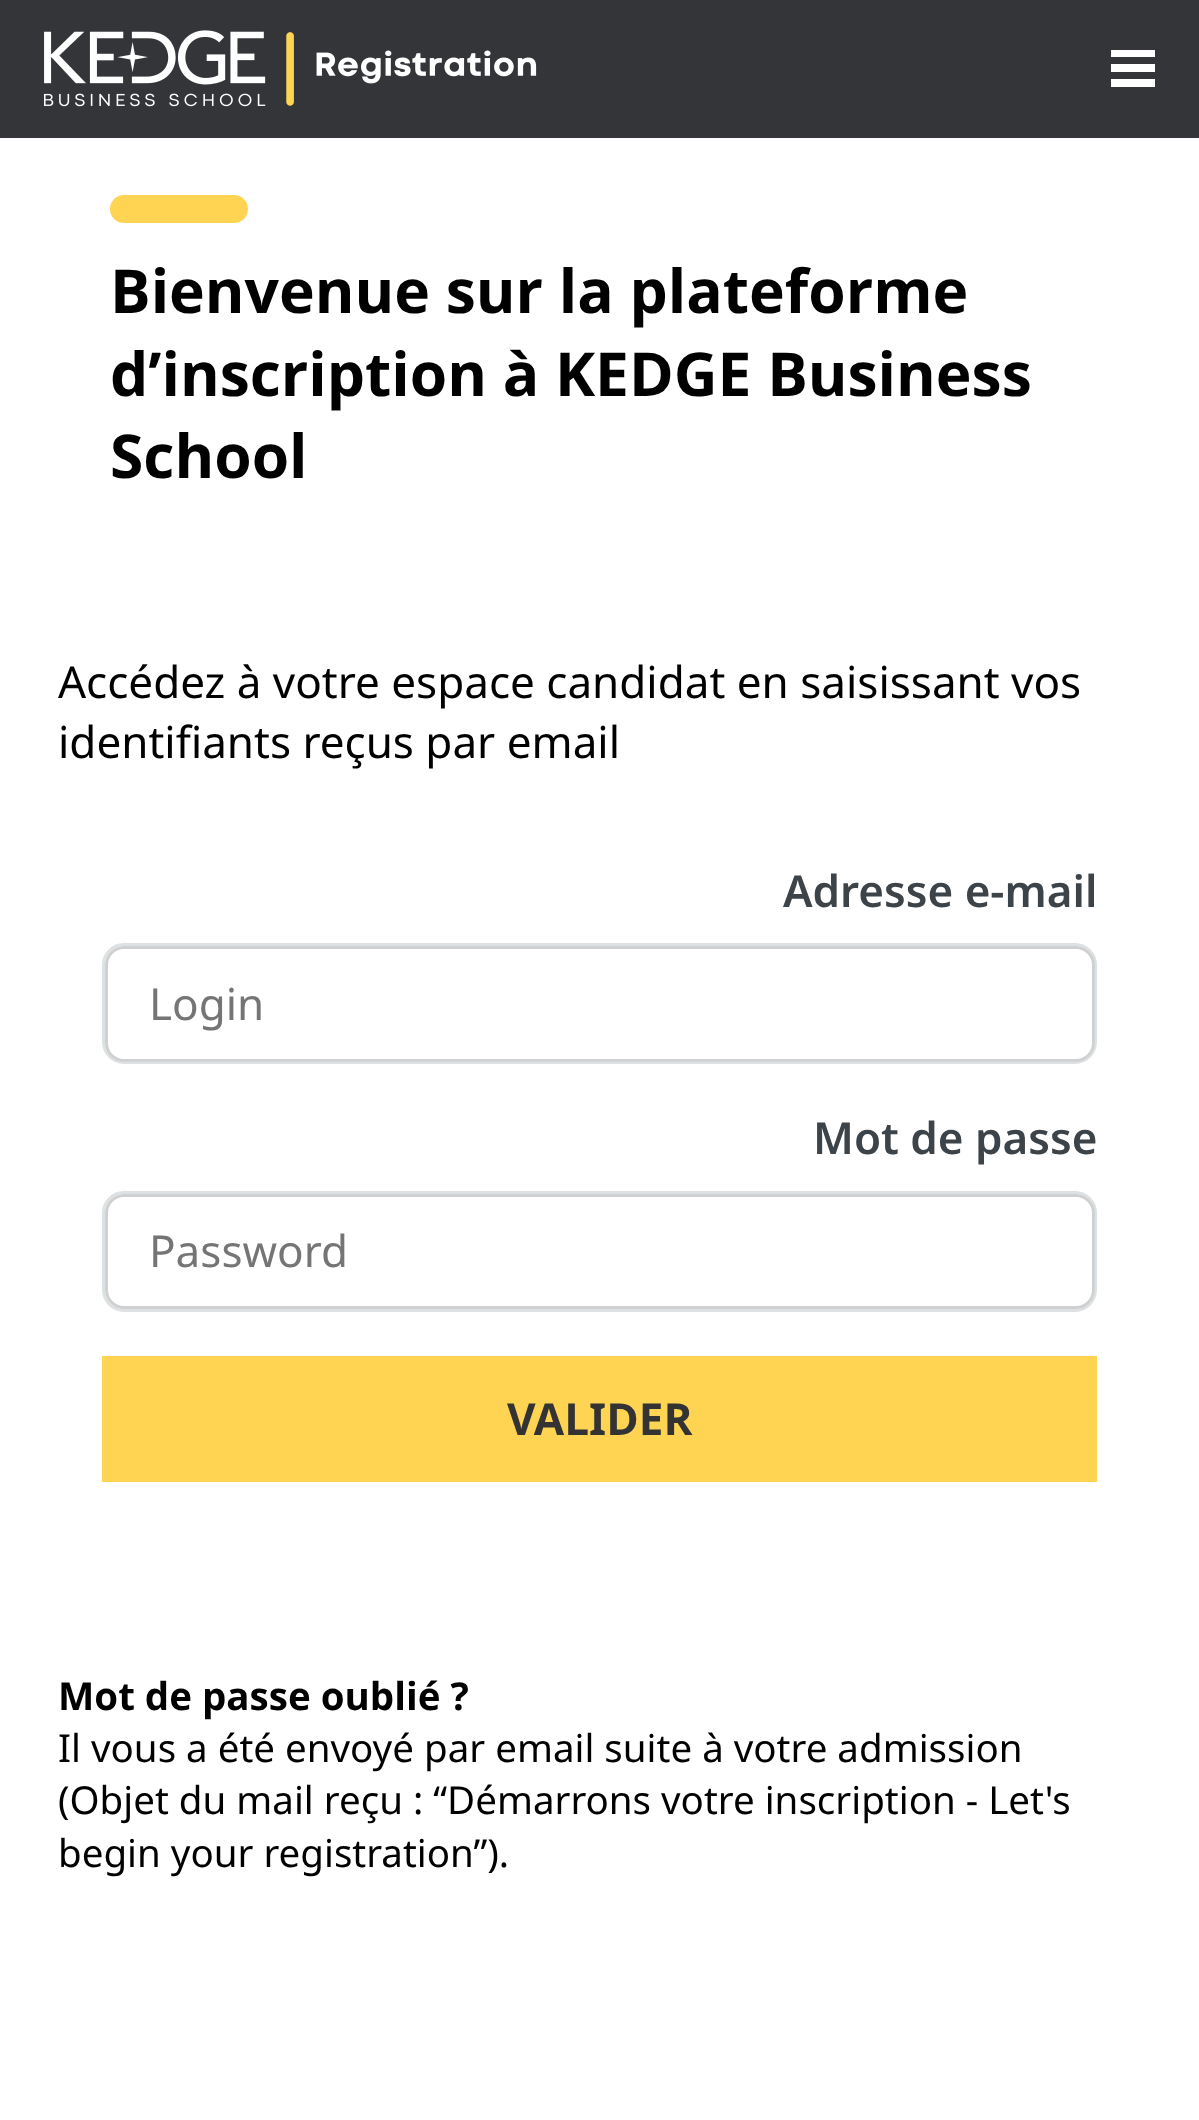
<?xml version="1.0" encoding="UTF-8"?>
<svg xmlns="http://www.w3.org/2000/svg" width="1199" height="2120">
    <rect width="100%" height="100%" fill="#FFFFFF"/>
    <rect x="0" y="0" width="1199" height="138" fill="#333539"/>
    <image x="44" y="30" width="493" height="77" href="img_01.png"/>
    <path d="M 1155 57 H 1111 V 50 H 1155 Z M 1155 64 H 1111 V 72 H 1155 Z M 1155 79 H 1111 V 87 H 1155 Z" fill="#FFFFFF"/>
    <rect x="110" y="195" width="138" height="28" rx="14" fill="#FFD453"/>
    <text font-family="Noto Sans" font-size="60.5" font-weight="700" fill="#000000">
        <tspan x="110" y="313">Bienvenue sur la plateforme</tspan>
        <tspan x="110" y="396">d’inscription à KEDGE Business</tspan>
        <tspan x="110" y="478">School</tspan>
    </text>
    <text font-family="Noto Sans" font-size="44" fill="#000000">
        <tspan x="58" y="698">Accédez à votre espace candidat en saisissant vos</tspan>
        <tspan x="58" y="758">identifiants reçus par email</tspan>
    </text>
    <text x="783" y="907" font-family="Noto Sans" font-size="44" font-weight="600" fill="#3D4449">Adresse e-mail</text>
    <rect x="106.5" y="947.5" width="987" height="113" rx="17.5" fill="none" stroke="#D0D0D0" stroke-width="3"/>
    <rect x="103.5" y="944.5" width="992" height="118" rx="20.5" fill="none" stroke="#D2D7D9" stroke-opacity="0.75" stroke-width="3"/>
    <text x="149" y="1020" font-family="Noto Sans" font-size="44" fill="#757575">Login</text>
    <text x="813" y="1154" font-family="Noto Sans" font-size="44" font-weight="600" fill="#3D4449">Mot de passe</text>
    <rect x="106.5" y="1195.5" width="987" height="112" rx="17.5" fill="none" stroke="#D0D0D0" stroke-width="3"/>
    <rect x="103.5" y="1192.5" width="992" height="118" rx="20.5" fill="none" stroke="#D2D7D9" stroke-opacity="0.75" stroke-width="3"/>
    <text x="149" y="1267" font-family="Noto Sans" font-size="44" fill="#757575">Password</text>
    <rect x="102" y="1356" width="995" height="126" fill="#FFD453"/>
    <text x="507" y="1435" font-family="Noto Sans" font-size="44" font-weight="700" fill="#333333">VALIDER</text>
    <text x="58" y="1710" font-family="Noto Sans" font-size="38.5" font-weight="700" fill="#000000">Mot de passe oublié ?</text>
    <text font-family="Noto Sans" font-size="38.5" fill="#000000">
        <tspan x="58" y="1762">Il vous a été envoyé par email suite à votre admission</tspan>
        <tspan x="58" y="1814">(Objet du mail reçu : “Démarrons votre inscription - Let's</tspan>
        <tspan x="58" y="1867">begin your registration”).</tspan>
    </text>
</svg>
